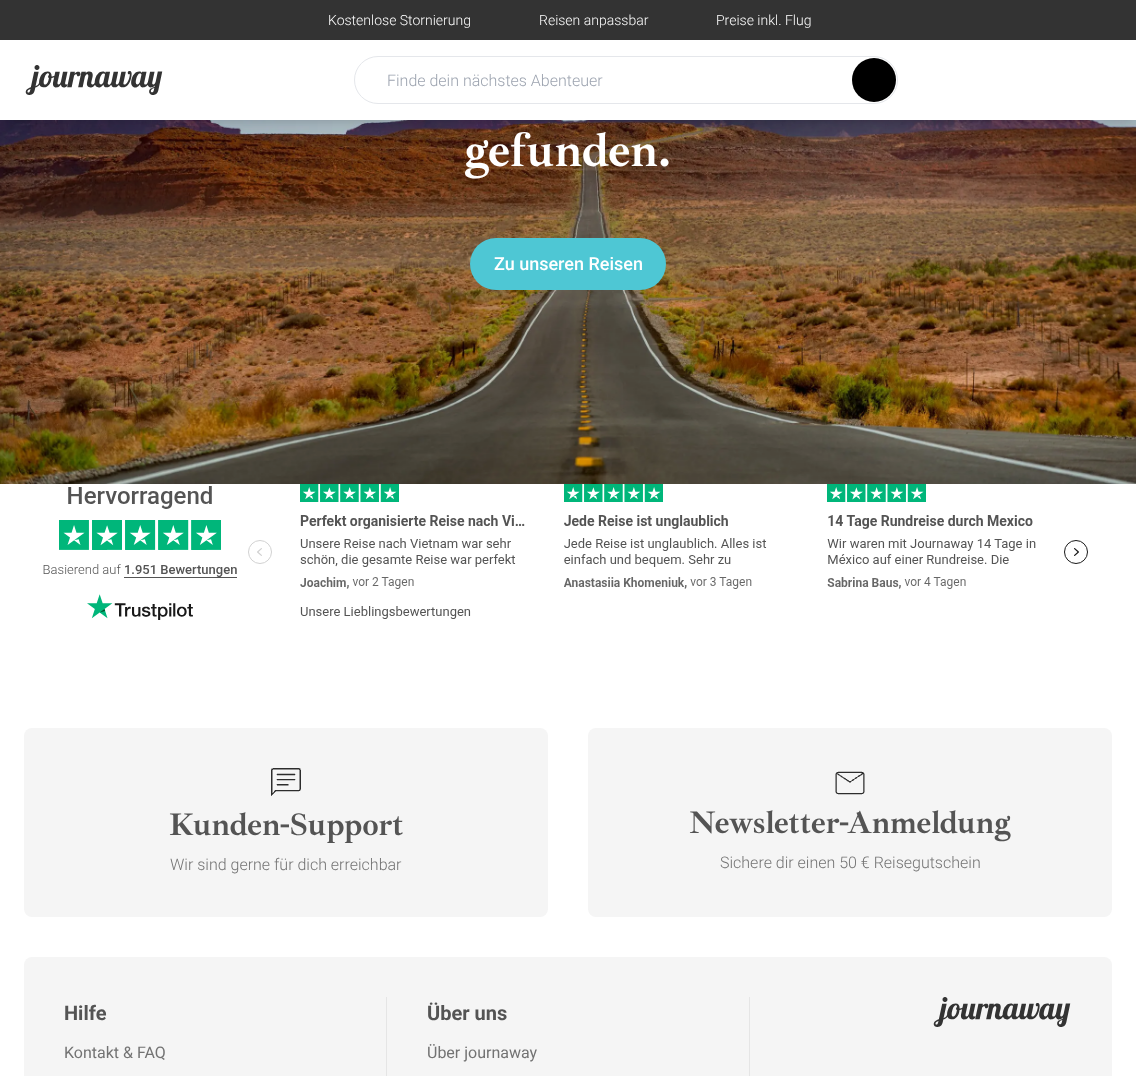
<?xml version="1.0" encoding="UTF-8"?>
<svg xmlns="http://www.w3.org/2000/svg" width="1136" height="1076">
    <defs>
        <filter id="blur1" x="-50%" y="-200%" width="200%" height="500%"><feGaussianBlur stdDeviation="3"/></filter>
        <filter id="blur2" x="-50%" y="-200%" width="200%" height="500%"><feGaussianBlur stdDeviation="7.5"/></filter>
    </defs>
    <rect width="100%" height="100%" fill="#FFFFFF"/>
    <image x="0" y="120" width="1136" height="364" href="img_02.png"/>
    <rect x="4" y="8" width="1128" height="112" fill="#000000" fill-opacity="0.1" filter="url(#blur1)"/>
    <rect x="3" y="13" width="1130" height="114" fill="#000000" fill-opacity="0.1" filter="url(#blur2)"/>
    <rect x="0" y="40" width="1136" height="80" fill="#FFFFFF"/>
    <rect x="0" y="0" width="1136" height="40" fill="#333333"/>
    <text x="328" y="25" font-family="Roboto" font-size="14" font-weight="300" fill="#FFFFFF">Kostenlose Stornierung</text>
    <text x="539" y="25" font-family="Roboto" font-size="14" font-weight="300" fill="#FFFFFF">Reisen anpassbar</text>
    <text x="716" y="25" font-family="Roboto" font-size="14" font-weight="300" fill="#FFFFFF">Preise inkl. Flug</text>
    <image x="25" y="65" width="138" height="30" href="img_01.png"/>
    <rect x="354.5" y="56.5" width="543" height="47" rx="23.5" fill="none" stroke="#E5E7EB"/>
    <text x="387" y="86" font-family="Roboto" font-size="16" font-weight="300" fill="#9CA3AF">Finde dein nächstes Abenteuer</text>
    <circle cx="874" cy="80" r="22" fill="#000000"/>
    <text x="464" y="166" font-family="Ibarra Real Nova" font-size="48" font-weight="700" fill="#FFFFFF">gefunden.</text>
    <rect x="470" y="238" width="196" height="52" rx="26" fill="#4EC7D4"/>
    <text x="494" y="270" font-family="Roboto" font-size="18" font-weight="500" fill="#FFFFFF">Zu unseren Reisen</text>
    <image x="43" y="484" width="1045" height="136" href="img_03.png"/>
    <rect x="24" y="728" width="524" height="189" rx="8" fill="#F5F5F5"/>
    <image x="271" y="768" width="30" height="28" href="img_04.png"/>
    <text x="169" y="835" font-family="Ibarra Real Nova" font-size="32" font-weight="700" fill="#545454">Kunden-Support</text>
    <text x="170" y="870" font-family="Roboto" font-size="16" font-weight="300" fill="#737373">Wir sind gerne für dich erreichbar</text>
    <rect x="588" y="728" width="524" height="189" rx="8" fill="#F5F5F5"/>
    <image x="835" y="771" width="30" height="24" href="img_05.png"/>
    <text x="689" y="833" font-family="Ibarra Real Nova" font-size="32" font-weight="700" fill="#545454">Newsletter-Anmeldung</text>
    <text x="720" y="868" font-family="Roboto" font-size="16" font-weight="300" fill="#737373">Sichere dir einen 50 € Reisegutschein</text>
    <rect x="24" y="957" width="1088" height="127" rx="8" fill="#F5F5F5"/>
    <text x="64" y="1020" font-family="Roboto" font-size="20" font-weight="700" fill="#545454">Hilfe</text>
    <text x="64" y="1058" font-family="Roboto" font-size="16" fill="#737373">Kontakt &amp; FAQ</text>
    <rect x="386" y="997" width="1" height="79" fill="#E5E5E5"/>
    <text x="427" y="1020" font-family="Roboto" font-size="20" font-weight="700" fill="#545454">Über uns</text>
    <text x="427" y="1058" font-family="Roboto" font-size="16" fill="#737373">Über journaway</text>
    <rect x="749" y="997" width="1" height="79" fill="#E5E5E5"/>
    <image x="933" y="997" width="138" height="30" href="img_06.png"/>
</svg>
